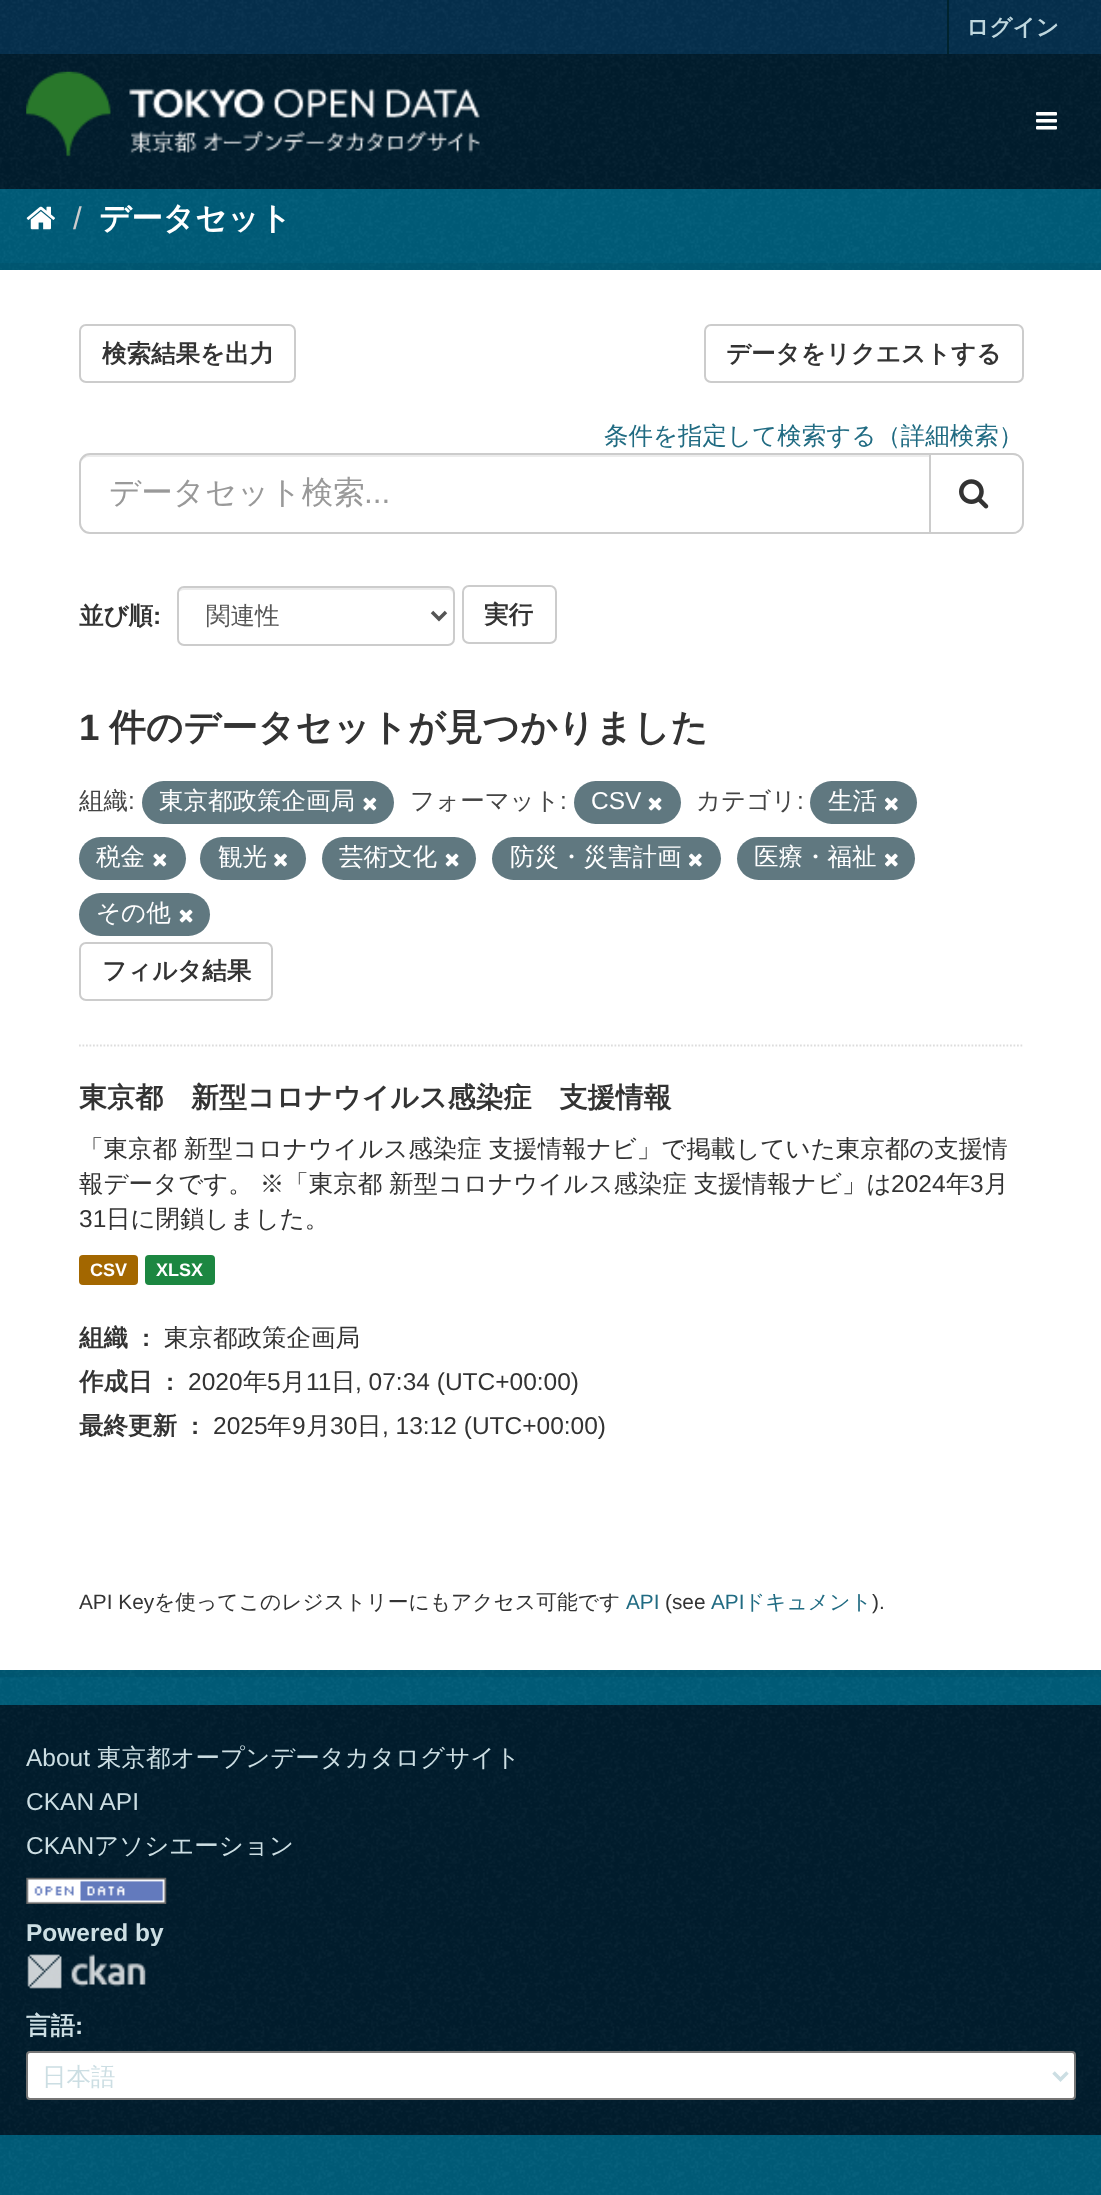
<?xml version="1.0" encoding="UTF-8"?>
<svg xmlns="http://www.w3.org/2000/svg" width="1101" height="2195">
    <rect width="100%" height="100%" fill="#005D7A"/>
    <image x="0" y="189" width="1101" height="2006" href="img_01.png"/>
    <rect x="0" y="0" width="1101" height="54" fill="#06304E"/>
    <image x="0" y="0" width="1101" height="54" href="img_02.png"/>
    <rect x="947" y="0" width="2" height="54" fill="#00232E"/>
    <text x="966" y="35" font-family="WenQuanYi Zen Hei" font-size="22.75" font-weight="700" fill="#BFD7DE">ログイン</text>
    <rect x="0" y="54" width="1101" height="135" fill="#021D2E"/>
    <image x="0" y="54" width="1101" height="135" href="img_03.png"/>
    <image x="26" y="71" width="454" height="86" href="img_04.png"/>
    <image x="1036" y="112" width="21" height="18" href="img_05.png"/>
    <image x="26" y="206" width="29" height="24" href="img_06.png"/>
    <text x="73" y="229" font-family="Liberation Sans" font-size="31.5" fill="#CCCCCC">/</text>
    <text x="99" y="229" font-family="WenQuanYi Zen Hei" font-size="31.5" font-weight="700" fill="#FFFFFF">データセット</text>
    <rect x="-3.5" y="266.5" width="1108" height="1407" fill="none" stroke="#000000" stroke-opacity="0.05" stroke-width="7"/>
    <rect x="0" y="270" width="1101" height="1400" fill="#FFFFFF"/>
    <rect x="80" y="325" width="215" height="57" rx="6" fill="none" stroke="#CCCCCC" stroke-width="2"/>
    <text x="102" y="362" font-family="WenQuanYi Zen Hei" font-size="24.5" font-weight="700" fill="#333333">検索結果を出力</text>
    <rect x="705" y="325" width="318" height="57" rx="6" fill="none" stroke="#CCCCCC" stroke-width="2"/>
    <text x="726" y="362" font-family="WenQuanYi Zen Hei" font-size="24.5" font-weight="700" fill="#333333">データをリクエストする</text>
    <path d="M 79 1045.5 H 1024" fill="none" stroke="#DDDDDD" stroke-width="1.8" stroke-dasharray="1.75 1.75"/>
    <text x="604" y="444" font-family="WenQuanYi Zen Hei" font-size="24.5" font-weight="500" fill="#206B82">条件を指定して検索する（詳細検索）</text>
    <path d="M 89 457 H 929 V 455 H 90 C 86 455 83 457 82 461 C 83 459 86 457 89 457 Z" fill="#ECECEC"/>
    <path d="M 90 454 H 930 V 533 H 90 C 84.5 533 80 528.5 80 523 V 464 C 80 458.5 84.5 454 90 454 Z" fill="none" stroke="#CCCCCC" stroke-width="2"/>
    <text x="109" y="503" font-family="WenQuanYi Zen Hei" font-size="31.5" font-weight="500" fill="#999999">データセット検索</text>
    <text x="364" y="503" font-family="Liberation Sans" font-size="31.5" fill="#999999">...</text>
    <path d="M 930 454 H 1013 C 1018.5 454 1023 458.5 1023 464 V 523 C 1023 528.5 1018.5 533 1013 533 H 930 Z" fill="#FFFFFF" stroke="#CCCCCC" stroke-width="2"/>
    <image x="959" y="479" width="30" height="30" href="img_07.png"/>
    <text x="79" y="624" font-family="WenQuanYi Zen Hei" font-size="24.5" font-weight="700" fill="#333333">並び順</text>
    <text x="153" y="624" font-family="Liberation Sans" font-size="24.5" font-weight="700" fill="#333333">:</text>
    <path d="M 184 590 H 448 C 451 590 453 592 453 595 V 593 C 453 590 451 588 448 588 H 184 C 182 588 179 590 179 592 C 180 591 182 590 184 590 Z" fill="#ECECEC"/>
    <rect x="178" y="587" width="276" height="58" rx="6" fill="none" stroke="#CCCCCC" stroke-width="2"/>
    <path d="M 432 612 L 439 619 L 446 612" fill="none" stroke="#555555" stroke-width="3.5"/>
    <text x="206" y="624" font-family="WenQuanYi Zen Hei" font-size="24.5" font-weight="500" fill="#555555">関連性</text>
    <rect x="463" y="586" width="93" height="57" rx="6" fill="none" stroke="#CCCCCC" stroke-width="2"/>
    <text x="484" y="623" font-family="WenQuanYi Zen Hei" font-size="24.5" font-weight="700" fill="#333333">実行</text>
    <text x="79" y="740" font-family="Liberation Sans" font-size="36.75" font-weight="700" fill="#333333">1</text>
    <text x="109" y="740" font-family="WenQuanYi Zen Hei" font-size="36.75" font-weight="700" fill="#333333">件のデータセットが見つかりました</text>
    <text x="79" y="809" font-family="WenQuanYi Zen Hei" font-size="24.5" font-weight="500" fill="#444444">組織</text>
    <text x="128" y="809" font-family="Liberation Sans" font-size="24.5" fill="#444444">:</text>
    <rect x="142" y="781" width="252" height="43" rx="21.5" fill="#607880"/>
    <text x="159" y="809" font-family="WenQuanYi Zen Hei" font-size="24.5" font-weight="500" fill="#FFFFFF">東京都政策企画局</text>
    <image x="363" y="797" width="14" height="14" href="img_08.png"/>
    <text x="410" y="809" font-family="WenQuanYi Zen Hei" font-size="24.5" font-weight="500" fill="#444444">フォーマット</text>
    <text x="560" y="809" font-family="Liberation Sans" font-size="24.5" fill="#444444">:</text>
    <rect x="574" y="781" width="107" height="43" rx="21.5" fill="#607880"/>
    <text x="591" y="809" font-family="Liberation Sans" font-size="24.5" fill="#FFFFFF">CSV</text>
    <image x="648" y="797" width="14" height="14" href="img_09.png"/>
    <text x="696" y="809" font-family="WenQuanYi Zen Hei" font-size="24.5" font-weight="500" fill="#444444">カテゴリ</text>
    <text x="797" y="809" font-family="Liberation Sans" font-size="24.5" fill="#444444">:</text>
    <rect x="810" y="781" width="107" height="43" rx="21.5" fill="#607880"/>
    <text x="828" y="809" font-family="WenQuanYi Zen Hei" font-size="24.5" font-weight="500" fill="#FFFFFF">生活</text>
    <image x="885" y="797" width="13" height="14" href="img_10.png"/>
    <rect x="79" y="837" width="107" height="43" rx="21.5" fill="#607880"/>
    <text x="96" y="865" font-family="WenQuanYi Zen Hei" font-size="24.5" font-weight="500" fill="#FFFFFF">税金</text>
    <image x="153" y="853" width="14" height="14" href="img_08.png"/>
    <rect x="200" y="837" width="106" height="43" rx="21.5" fill="#607880"/>
    <text x="218" y="865" font-family="WenQuanYi Zen Hei" font-size="24.5" font-weight="500" fill="#FFFFFF">観光</text>
    <image x="274" y="853" width="13" height="14" href="img_11.png"/>
    <rect x="322" y="837" width="154" height="43" rx="21.5" fill="#607880"/>
    <text x="339" y="865" font-family="WenQuanYi Zen Hei" font-size="24.5" font-weight="500" fill="#FFFFFF">芸術文化</text>
    <image x="445" y="853" width="14" height="14" href="img_09.png"/>
    <rect x="492" y="837" width="229" height="43" rx="21.5" fill="#607880"/>
    <text x="510" y="865" font-family="WenQuanYi Zen Hei" font-size="24.5" font-weight="500" fill="#FFFFFF">防災・災害計画</text>
    <image x="689" y="853" width="13" height="14" href="img_10.png"/>
    <rect x="737" y="837" width="178" height="43" rx="21.5" fill="#607880"/>
    <text x="754" y="865" font-family="WenQuanYi Zen Hei" font-size="24.5" font-weight="500" fill="#FFFFFF">医療・福祉</text>
    <image x="885" y="853" width="13" height="14" href="img_10.png"/>
    <rect x="79" y="893" width="131" height="43" rx="21.5" fill="#607880"/>
    <text x="96" y="921" font-family="WenQuanYi Zen Hei" font-size="24.5" font-weight="500" fill="#FFFFFF">その他</text>
    <image x="179" y="909" width="14" height="14" href="img_12.png"/>
    <rect x="80" y="943" width="192" height="57" rx="6" fill="none" stroke="#CCCCCC" stroke-width="2"/>
    <text x="102" y="979" font-family="WenQuanYi Zen Hei" font-size="24.5" font-weight="700" fill="#333333">フィルタ結果</text>
    <text x="79" y="1107" font-family="WenQuanYi Zen Hei" font-size="28" font-weight="700" fill="#333333">東京都　新型コロナウイルス感染症　支援情報</text>
    <text font-family="WenQuanYi Zen Hei" font-size="24.5" font-weight="500" fill="#333333">
        <tspan x="79" y="1157" word-spacing="-0.5">「東京都 新型コロナウイルス感染症 支援情報ナビ」で掲載していた東京都の支援情</tspan>
        <tspan x="79" y="1192" word-spacing="-0.5">報データです。 ※「東京都 新型コロナウイルス感染症 支援情報ナビ」は</tspan>
    </text>
    <text x="891" y="1192" font-family="Liberation Sans" font-size="24.5" fill="#333333">2024</text>
    <text x="946" y="1192" font-family="WenQuanYi Zen Hei" font-size="24.5" font-weight="500" fill="#333333">年</text>
    <text x="970" y="1192" font-family="Liberation Sans" font-size="24.5" fill="#333333">3</text>
    <text x="984" y="1192" font-family="WenQuanYi Zen Hei" font-size="24.5" font-weight="500" fill="#333333">月</text>
    <text x="79" y="1227" font-family="Liberation Sans" font-size="24.5" fill="#333333">31</text>
    <text x="106" y="1227" font-family="WenQuanYi Zen Hei" font-size="24.5" font-weight="500" fill="#333333">日に閉鎖しました。</text>
    <rect x="79" y="1255" width="59" height="30" rx="4" fill="#A36700"/>
    <text x="90" y="1276" font-family="Liberation Sans" font-size="18" font-weight="700" fill="#FFFFFF">CSV</text>
    <rect x="145" y="1255" width="70" height="30" rx="4" fill="#1C8741"/>
    <text x="156" y="1276" font-family="Liberation Sans" font-size="18" font-weight="700" fill="#FFFFFF">XLSX</text>
    <text x="79" y="1346" font-family="WenQuanYi Zen Hei" font-size="24.5" font-weight="700" fill="#333333">組織</text>
    <text x="142" y="1346" font-family="Liberation Sans" font-size="24.5" font-weight="700" fill="#333333">:</text>
    <text x="164" y="1346" font-family="WenQuanYi Zen Hei" font-size="24.5" font-weight="500" fill="#333333">東京都政策企画局</text>
    <text x="79" y="1390" font-family="WenQuanYi Zen Hei" font-size="24.5" font-weight="700" fill="#333333">作成日</text>
    <text x="166" y="1390" font-family="Liberation Sans" font-size="24.5" font-weight="700" fill="#333333">:</text>
    <text x="188" y="1390" font-family="Liberation Sans" font-size="24.5" fill="#333333">2020</text>
    <text x="243" y="1390" font-family="WenQuanYi Zen Hei" font-size="24.5" font-weight="500" fill="#333333">年</text>
    <text x="267" y="1390" font-family="Liberation Sans" font-size="24.5" fill="#333333">5</text>
    <text x="281" y="1390" font-family="WenQuanYi Zen Hei" font-size="24.5" font-weight="500" fill="#333333">月</text>
    <text x="306" y="1390" font-family="Liberation Sans" font-size="24.5" fill="#333333">11</text>
    <text x="331" y="1390" font-family="WenQuanYi Zen Hei" font-size="24.5" font-weight="500" fill="#333333">日</text>
    <text x="355" y="1390" font-family="Liberation Sans" font-size="24.5" fill="#333333">, 07:34 (UTC+00:00)</text>
    <text x="79" y="1434" font-family="WenQuanYi Zen Hei" font-size="24.5" font-weight="700" fill="#333333">最終更新</text>
    <text x="191" y="1434" font-family="Liberation Sans" font-size="24.5" font-weight="700" fill="#333333">:</text>
    <text x="213" y="1434" font-family="Liberation Sans" font-size="24.5" fill="#333333">2025</text>
    <text x="267" y="1434" font-family="WenQuanYi Zen Hei" font-size="24.5" font-weight="500" fill="#333333">年</text>
    <text x="292" y="1434" font-family="Liberation Sans" font-size="24.5" fill="#333333">9</text>
    <text x="306" y="1434" font-family="WenQuanYi Zen Hei" font-size="24.5" font-weight="500" fill="#333333">月</text>
    <text x="330" y="1434" font-family="Liberation Sans" font-size="24.5" fill="#333333">30</text>
    <text x="357" y="1434" font-family="WenQuanYi Zen Hei" font-size="24.5" font-weight="500" fill="#333333">日</text>
    <text x="382" y="1434" font-family="Liberation Sans" font-size="24.5" fill="#333333">, 13:12 (UTC+00:00)</text>
    <text x="79" y="1609" font-family="Liberation Sans" font-size="20.8" fill="#333333">API Key</text>
    <text x="154" y="1609" font-family="WenQuanYi Zen Hei" font-size="20.8" font-weight="500" fill="#333333">を使ってこのレジストリーにもアクセス可能です</text>
    <text x="626" y="1609" font-family="Liberation Sans" font-size="20.8" fill="#206B82">API</text>
    <text x="665" y="1609" font-family="Liberation Sans" font-size="20.8" fill="#333333">(see</text>
    <text x="711" y="1609" font-family="Liberation Sans" font-size="20.8" fill="#206B82">API</text>
    <text x="744" y="1609" font-family="WenQuanYi Zen Hei" font-size="20.8" font-weight="500" fill="#206B82">ドキュメント</text>
    <text x="872" y="1609" font-family="Liberation Sans" font-size="20.8" fill="#333333">).</text>
    <rect x="0" y="1705" width="1101" height="430" fill="#021D2E"/>
    <image x="0" y="1705" width="1101" height="430" href="img_13.png"/>
    <text x="26" y="1766" font-family="Liberation Sans" font-size="24.5" fill="#CCDEE3">About</text>
    <text x="97" y="1766" font-family="WenQuanYi Zen Hei" font-size="24.5" font-weight="500" fill="#CCDEE3">東京都オープンデータカタログサイト</text>
    <text font-family="Liberation Sans" font-size="24.5" fill="#CCDEE3">
        <tspan x="26" y="1810">CKAN API</tspan>
        <tspan x="26" y="1854">CKAN</tspan>
    </text>
    <text x="94" y="1854" font-family="WenQuanYi Zen Hei" font-size="24.5" font-weight="500" fill="#CCDEE3">アソシエーション</text>
    <image x="26" y="1877" width="141" height="27" href="img_14.png"/>
    <text x="26" y="1941" font-family="Liberation Sans" font-size="24.5" font-weight="700" fill="#CCDEE3">Powered by</text>
    <image x="27" y="1954" width="119" height="35" href="img_15.png"/>
    <text x="26" y="2034" font-family="WenQuanYi Zen Hei" font-size="24.5" font-weight="700" fill="#CCDEE3">言語</text>
    <text x="75" y="2034" font-family="Liberation Sans" font-size="24.5" font-weight="700" fill="#CCDEE3">:</text>
    <rect x="27" y="2052" width="1048" height="47" rx="3" fill="#FFFFFF" stroke="#767676" stroke-width="2"/>
    <path d="M 1053.5 2072.5 L 1060.5 2079.5 L 1067.5 2072.5" fill="none" stroke="#CCDEE3" stroke-width="3.5"/>
    <text x="42" y="2085" font-family="WenQuanYi Zen Hei" font-size="24.5" font-weight="500" fill="#CCDEE3">日本語</text>
</svg>
